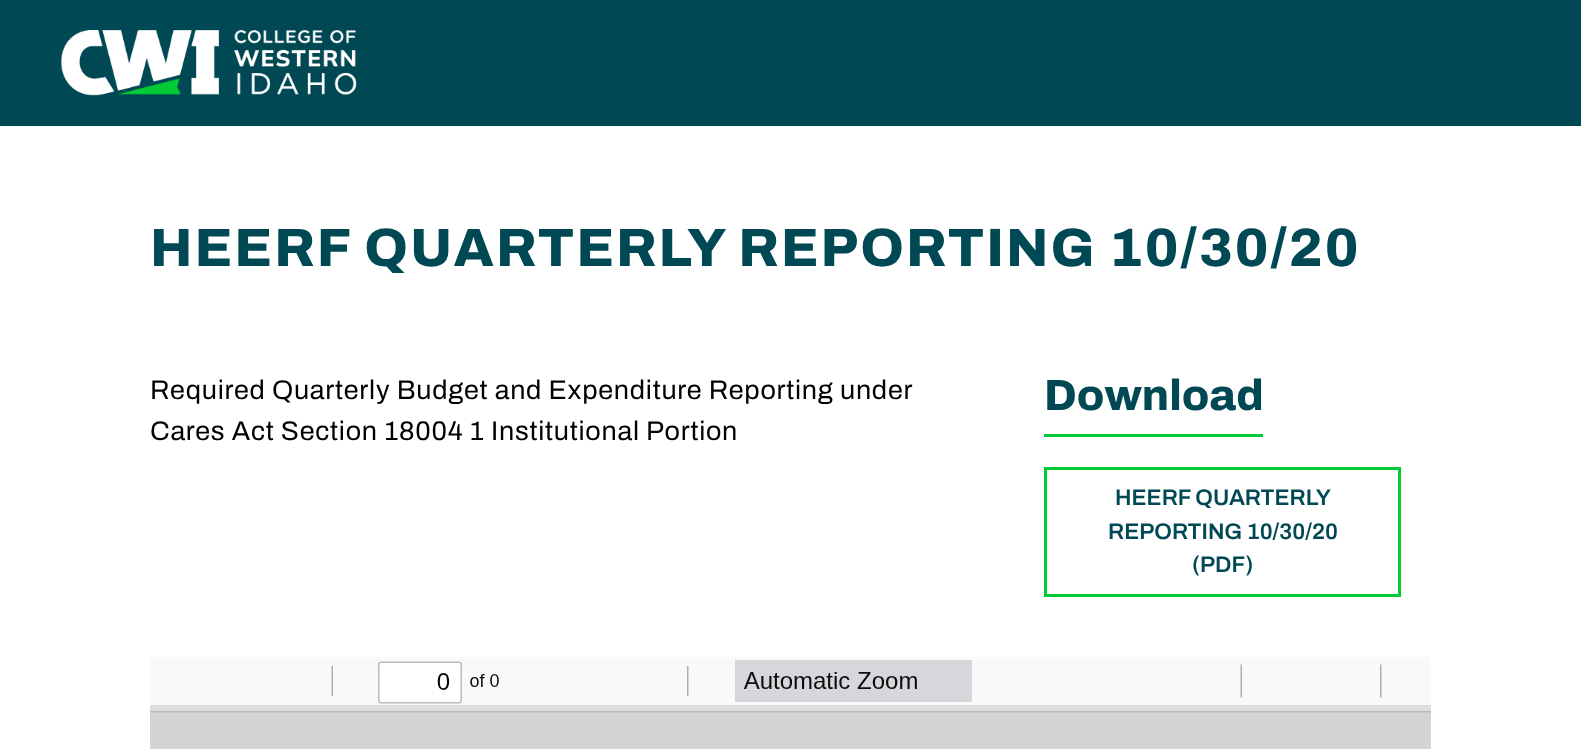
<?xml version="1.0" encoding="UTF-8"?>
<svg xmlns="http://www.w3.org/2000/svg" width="1581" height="749">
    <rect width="100%" height="100%" fill="#FFFFFF"/>
    <rect x="0" y="0" width="1581" height="126" fill="#004853"/>
    <image x="60" y="30" width="297" height="66" href="img_01.png"/>
    <text x="150" y="266" font-family="Archivo" font-size="54" font-weight="800" letter-spacing="2.05" fill="#004853">HEERF QUARTERLY REPORTING 10/30/20</text>
    <text font-family="Archivo" font-size="27" letter-spacing="0.75" fill="#000000">
        <tspan x="150" y="399">Required Quarterly Budget and Expenditure Reporting under</tspan>
        <tspan x="150" y="440">Cares Act Section 18004 1 Institutional Portion</tspan>
    </text>
    <rect x="1044" y="434" width="219" height="3" fill="#02CB35"/>
    <text x="1044" y="410" font-family="Archivo" font-size="43.5" font-weight="800" fill="#004853">Download</text>
    <rect x="1045.5" y="468.5" width="354" height="127" fill="none" stroke="#02CB35" stroke-width="3"/>
    <text x="1115" y="505" font-family="Archivo" font-size="22.5" font-weight="600" fill="#004853">HEERF QUARTERLY</text>
    <text x="1108" y="539" font-family="Archivo" font-size="22.5" font-weight="600" fill="#004853">REPORTING 10/30/20</text>
    <text x="1192" y="572" font-family="Archivo" font-size="22.5" font-weight="600" fill="#004853">(PDF)</text>
    <image x="150" y="657" width="1281" height="92" href="img_02.png"/>
</svg>
